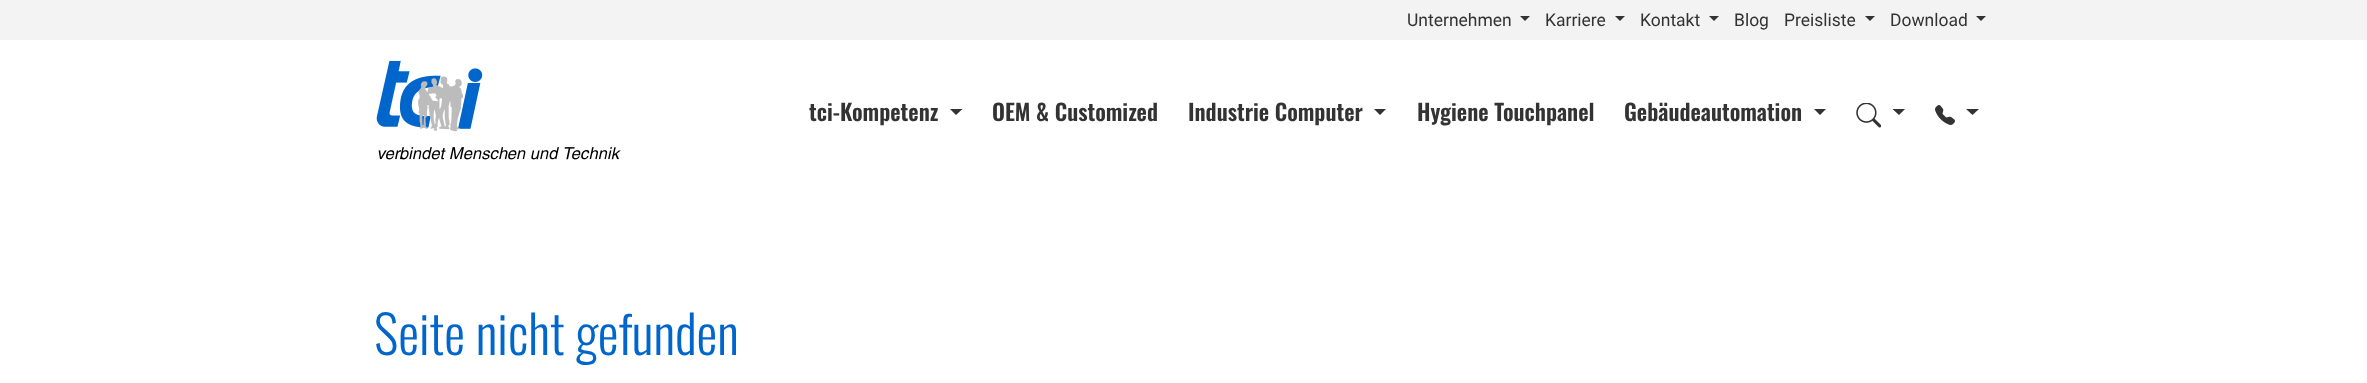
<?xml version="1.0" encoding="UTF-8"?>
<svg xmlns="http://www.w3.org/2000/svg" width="2367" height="383">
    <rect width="100%" height="100%" fill="#FFFFFF"/>
    <rect x="0" y="0" width="2367" height="40" fill="#F3F3F3"/>
    <text x="1407" y="26" font-family="Roboto" font-size="17.5" fill="#333333">Unternehmen</text>
    <path d="M 1520 16 H 1530 L 1525 21 Z" fill="#333333"/>
    <text x="1545" y="26" font-family="Roboto" font-size="17.5" fill="#333333">Karriere</text>
    <path d="M 1615 16 H 1625 L 1620 21 Z" fill="#333333"/>
    <text x="1640" y="26" font-family="Roboto" font-size="17.5" fill="#333333">Kontakt</text>
    <path d="M 1709 16 H 1719 L 1714 21 Z" fill="#333333"/>
    <text x="1734" y="26" font-family="Roboto" font-size="17.5" fill="#333333">Blog</text>
    <text x="1784" y="26" font-family="Roboto" font-size="17.5" fill="#333333">Preisliste</text>
    <path d="M 1865 16 H 1875 L 1870 21 Z" fill="#333333"/>
    <text x="1890" y="26" font-family="Roboto" font-size="17.5" fill="#333333">Download</text>
    <path d="M 1976 16 H 1986 L 1981 21 Z" fill="#333333"/>
    <image x="376" y="60" width="245" height="100" href="img_01.png"/>
    <text x="809" y="121" font-family="Oswald" font-size="22.5" font-weight="600" fill="#333333">tci-Kompetenz</text>
    <path d="M 950 109 H 962.5 L 956 115 Z" fill="#333333"/>
    <text x="992" y="121" font-family="Oswald" font-size="22.5" font-weight="600" fill="#333333">OEM &amp; Customized</text>
    <text x="1188" y="121" font-family="Oswald" font-size="22.5" font-weight="600" fill="#333333">Industrie Computer</text>
    <path d="M 1374 109 H 1386 L 1380 115 Z" fill="#333333"/>
    <text x="1417" y="121" font-family="Oswald" font-size="22.5" font-weight="600" fill="#333333">Hygiene Touchpanel</text>
    <text x="1624" y="121" font-family="Oswald" font-size="22.5" font-weight="600" fill="#333333">Gebäudeautomation</text>
    <path d="M 1814 109 H 1826 L 1820 115 Z" fill="#333333"/>
    <image x="1856" y="103" width="25" height="25" href="img_02.png"/>
    <path d="M 1892.5 109 H 1905 L 1899 115 Z" fill="#333333"/>
    <image x="1935" y="105" width="20" height="20" href="img_03.png"/>
    <path d="M 1966 109 H 1979 L 1972.5 115 Z" fill="#333333"/>
    <text x="374" y="355" font-family="Oswald" font-size="52.5" font-weight="300" fill="#0066CC">Seite nicht gefunden</text>
</svg>
